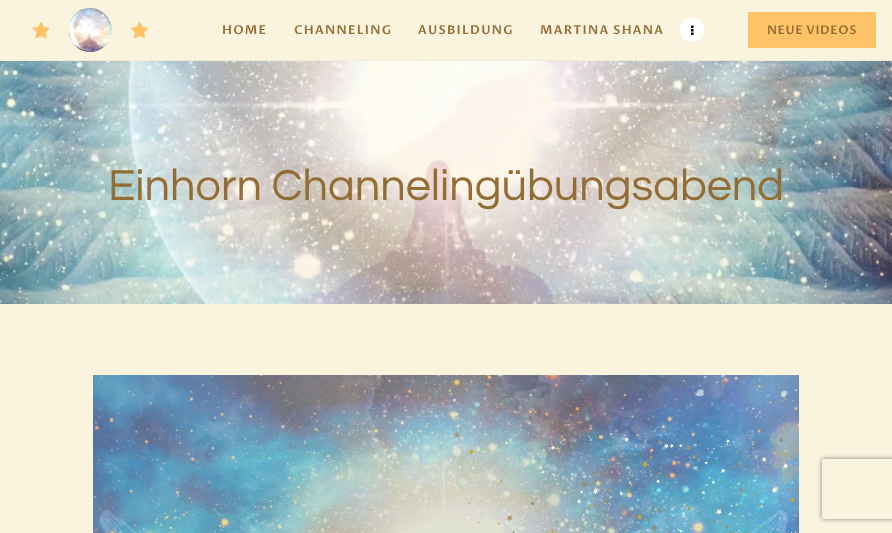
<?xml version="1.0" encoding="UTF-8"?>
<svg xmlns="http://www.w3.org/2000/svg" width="892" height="533">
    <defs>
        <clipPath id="clip1"><path d="M 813 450 H 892 V 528 H 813 Z M 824 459 H 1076 C 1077 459 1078 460 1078 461 V 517 C 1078 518 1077 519 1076 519 H 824 C 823 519 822 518 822 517 V 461 C 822 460 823 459 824 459 Z" clip-rule="evenodd"/></clipPath>
        <filter id="blur1" x="-50%" y="-200%" width="200%" height="500%"><feGaussianBlur stdDeviation="2.5"/></filter>
    </defs>
    <rect width="100%" height="100%" fill="#FAF4DF"/>
    <rect x="0" y="60" width="892" height="1" fill="#F2EBD4"/>
    <image x="32" y="8" width="117" height="44" href="img_01.png"/>
    <text x="222" y="34" font-family="Proza Libre" font-size="12.25" font-weight="600" letter-spacing="1.25" fill="#926D34">HOME</text>
    <text x="294" y="34" font-family="Proza Libre" font-size="12.25" font-weight="600" letter-spacing="1.25" fill="#926D34">CHANNELING</text>
    <text x="418" y="34" font-family="Proza Libre" font-size="12.25" font-weight="600" letter-spacing="1.25" fill="#926D34">AUSBILDUNG</text>
    <text x="540" y="34" font-family="Proza Libre" font-size="12.25" font-weight="600" letter-spacing="1.25" fill="#926D34">MARTINA SHANA</text>
    <circle cx="692" cy="30" r="12" fill="#FFFFFF"/>
    <image x="691" y="25" width="3" height="11" href="img_02.png"/>
    <rect x="748" y="12" width="128" height="36" fill="#FFC367"/>
    <text x="767" y="34" font-family="Proza Libre" font-size="12" font-weight="600" letter-spacing="0.6" fill="#926D34">NEUE VIDEOS</text>
    <image x="0" y="61" width="892" height="243" href="img_03.png"/>
    <text x="108" y="200" font-family="Questrial" font-size="45" fill="#926D34">Einhorn Channelingübungsabend</text>
    <image x="93" y="375" width="706" height="158" href="img_04.png"/>
    <g clip-path="url(#clip1)">
        <rect x="822" y="459" width="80" height="60" rx="2" fill="#808080" filter="url(#blur1)"/>
    </g>
</svg>
